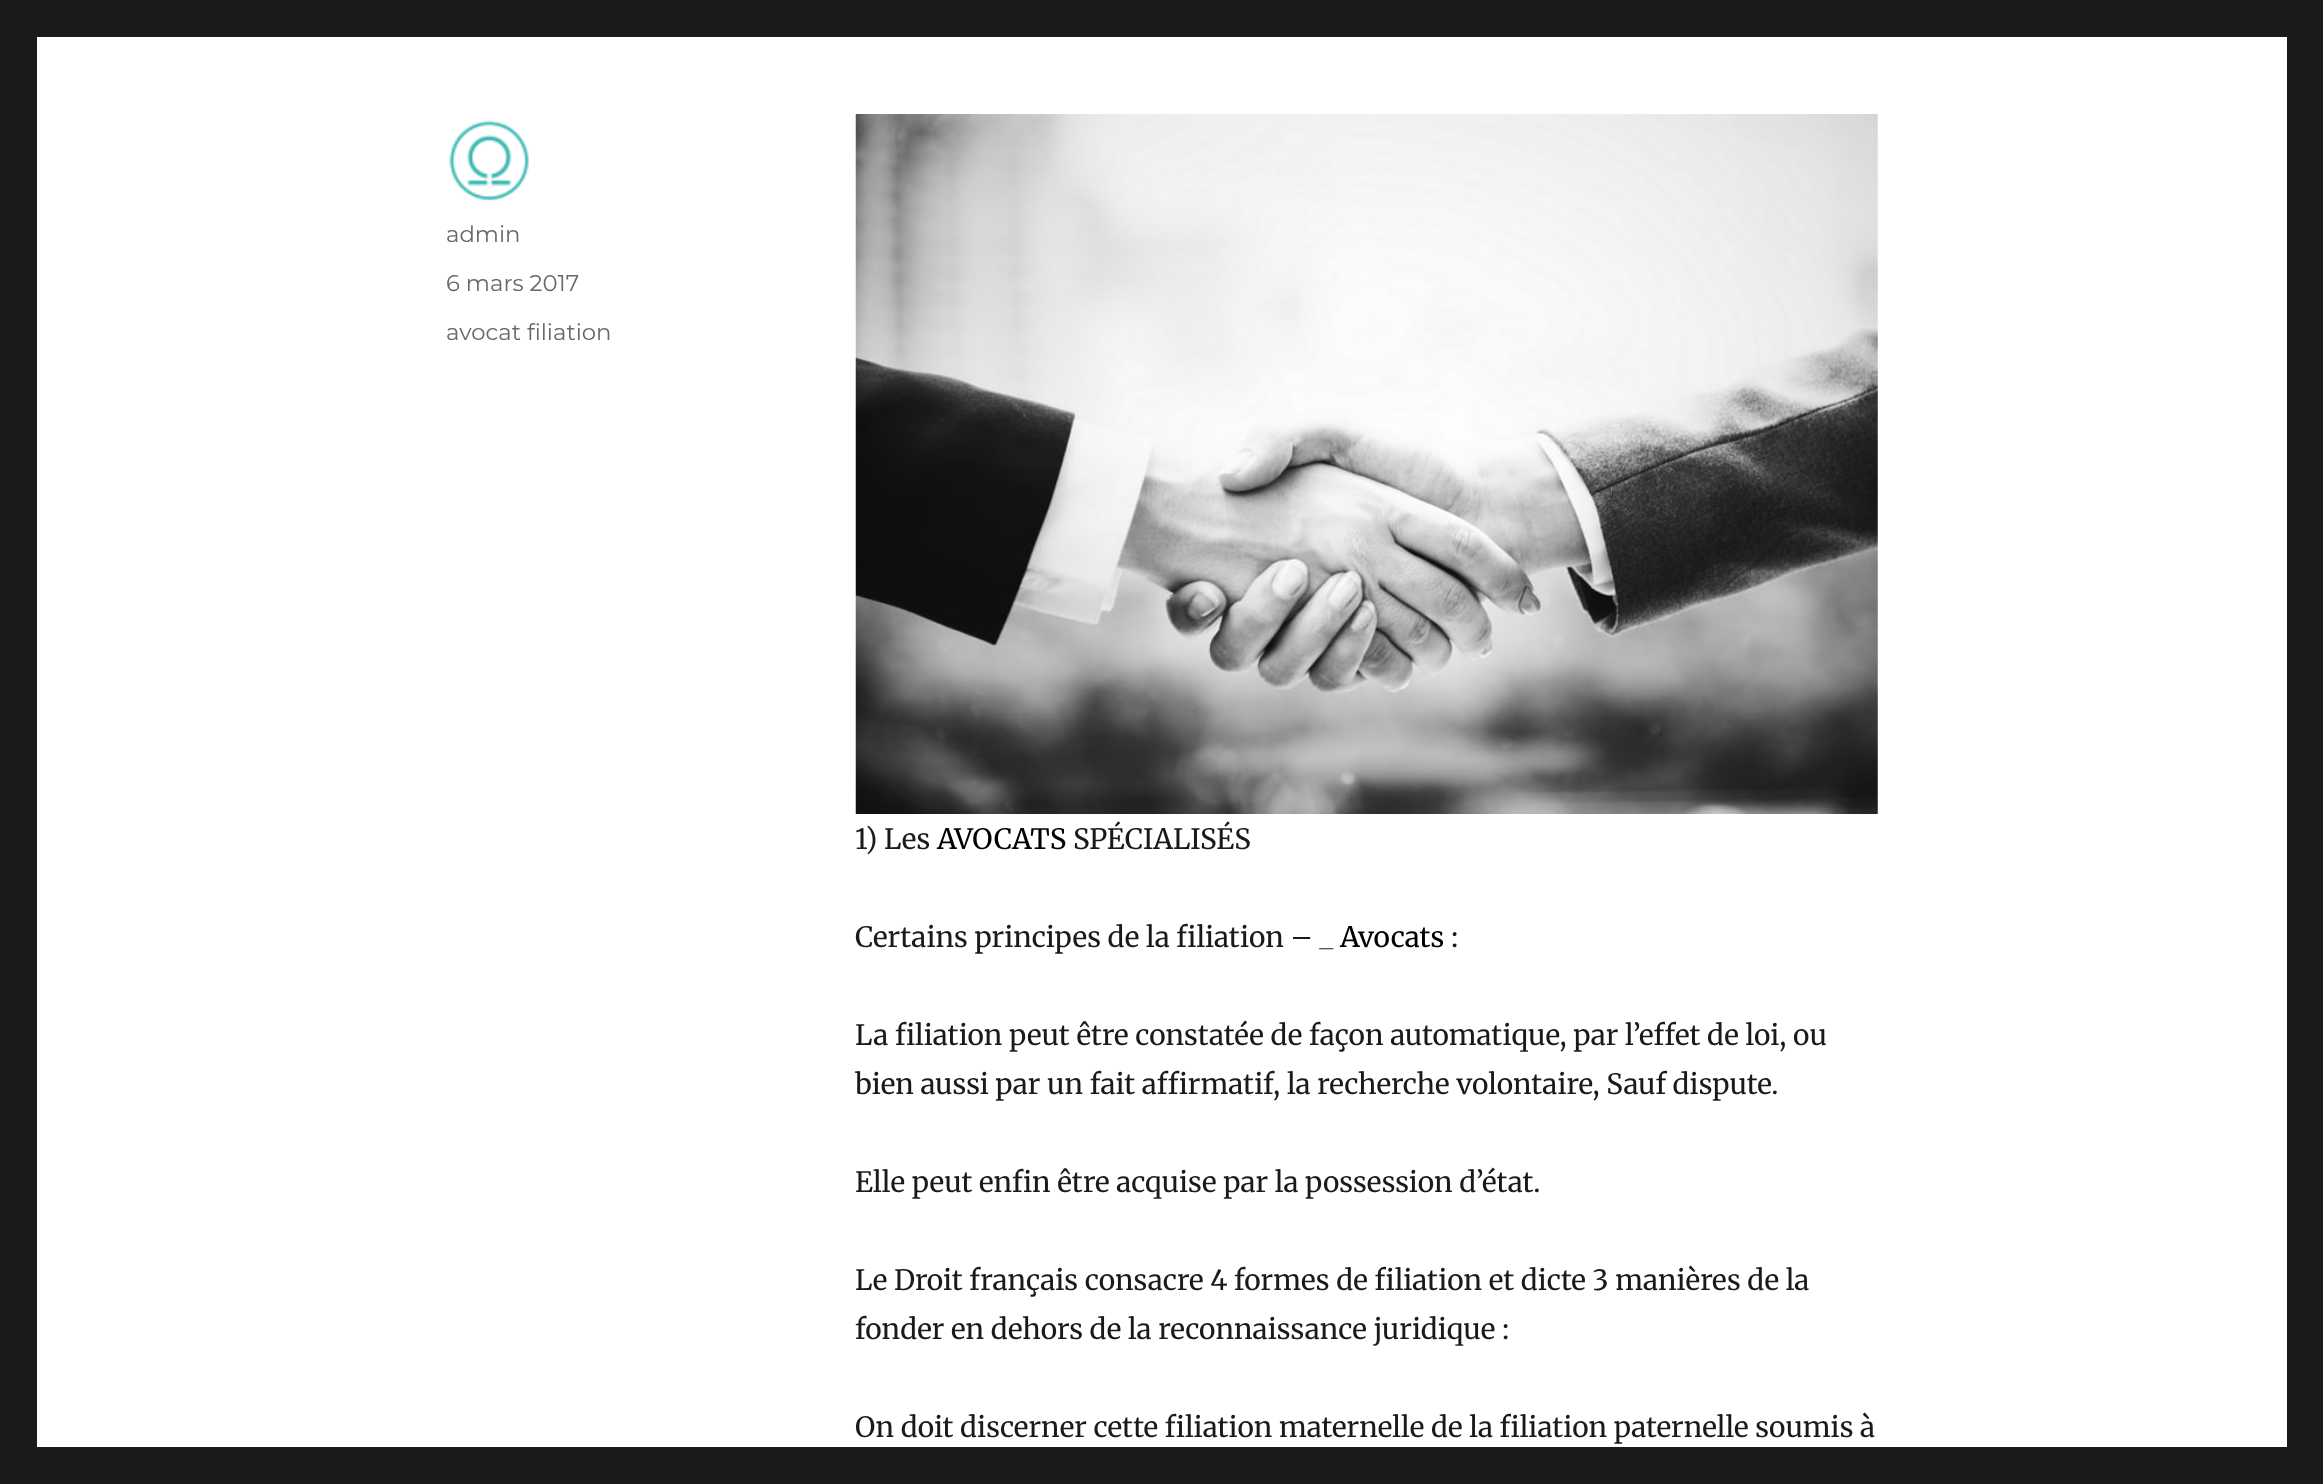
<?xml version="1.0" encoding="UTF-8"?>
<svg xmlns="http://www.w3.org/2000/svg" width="2323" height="1484">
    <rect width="100%" height="100%" fill="#1A1A1A"/>
    <rect x="37" y="37" width="2250" height="1410" fill="#FFFFFF"/>
    <image x="449" y="120" width="80" height="81" href="img_01.png"/>
    <text x="446" y="242" font-family="Montserrat" font-size="22.75" fill="#686868">admin</text>
    <text x="446" y="291" font-family="Montserrat" font-size="22.75" fill="#686868">6 mars 2017</text>
    <text x="446" y="340" font-family="Montserrat" font-size="22.75" fill="#686868">avocat filiation</text>
    <image x="855" y="114" width="1023" height="700" href="img_02.png"/>
    <text x="855" y="849" font-family="Merriweather" font-size="28" fill="#1A1A1A">1) Les</text>
    <text x="937" y="849" font-family="Merriweather" font-size="28" fill="#000000">AVOCATS</text>
    <text x="1073" y="849" font-family="Merriweather" font-size="28" fill="#1A1A1A">SPÉCIALISÉS</text>
    <text x="855" y="947" font-family="Merriweather" font-size="28" fill="#1A1A1A">Certains principes de la filiation – _</text>
    <text x="1340" y="947" font-family="Merriweather" font-size="28" fill="#000000">Avocats</text>
    <text x="1451" y="947" font-family="Merriweather" font-size="28" fill="#1A1A1A">:</text>
    <text font-family="Merriweather" font-size="28" fill="#1A1A1A">
        <tspan x="855" y="1045">La filiation peut être constatée de façon automatique, par l’effet de loi, ou</tspan>
        <tspan x="855" y="1094">bien aussi par un fait affirmatif, la recherche volontaire, Sauf dispute.</tspan>
    </text>
    <text x="855" y="1192" font-family="Merriweather" font-size="28" fill="#1A1A1A">Elle peut enfin être acquise par la possession d’état.</text>
    <text font-family="Merriweather" font-size="28" fill="#1A1A1A">
        <tspan x="855" y="1290">Le Droit français consacre 4 formes de filiation et dicte 3 manières de la</tspan>
        <tspan x="855" y="1339">fonder en dehors de la reconnaissance juridique :</tspan>
    </text>
    <text x="855" y="1437" font-family="Merriweather" font-size="28" fill="#1A1A1A">On doit discerner cette filiation maternelle de la filiation paternelle soumis à</text>
</svg>
